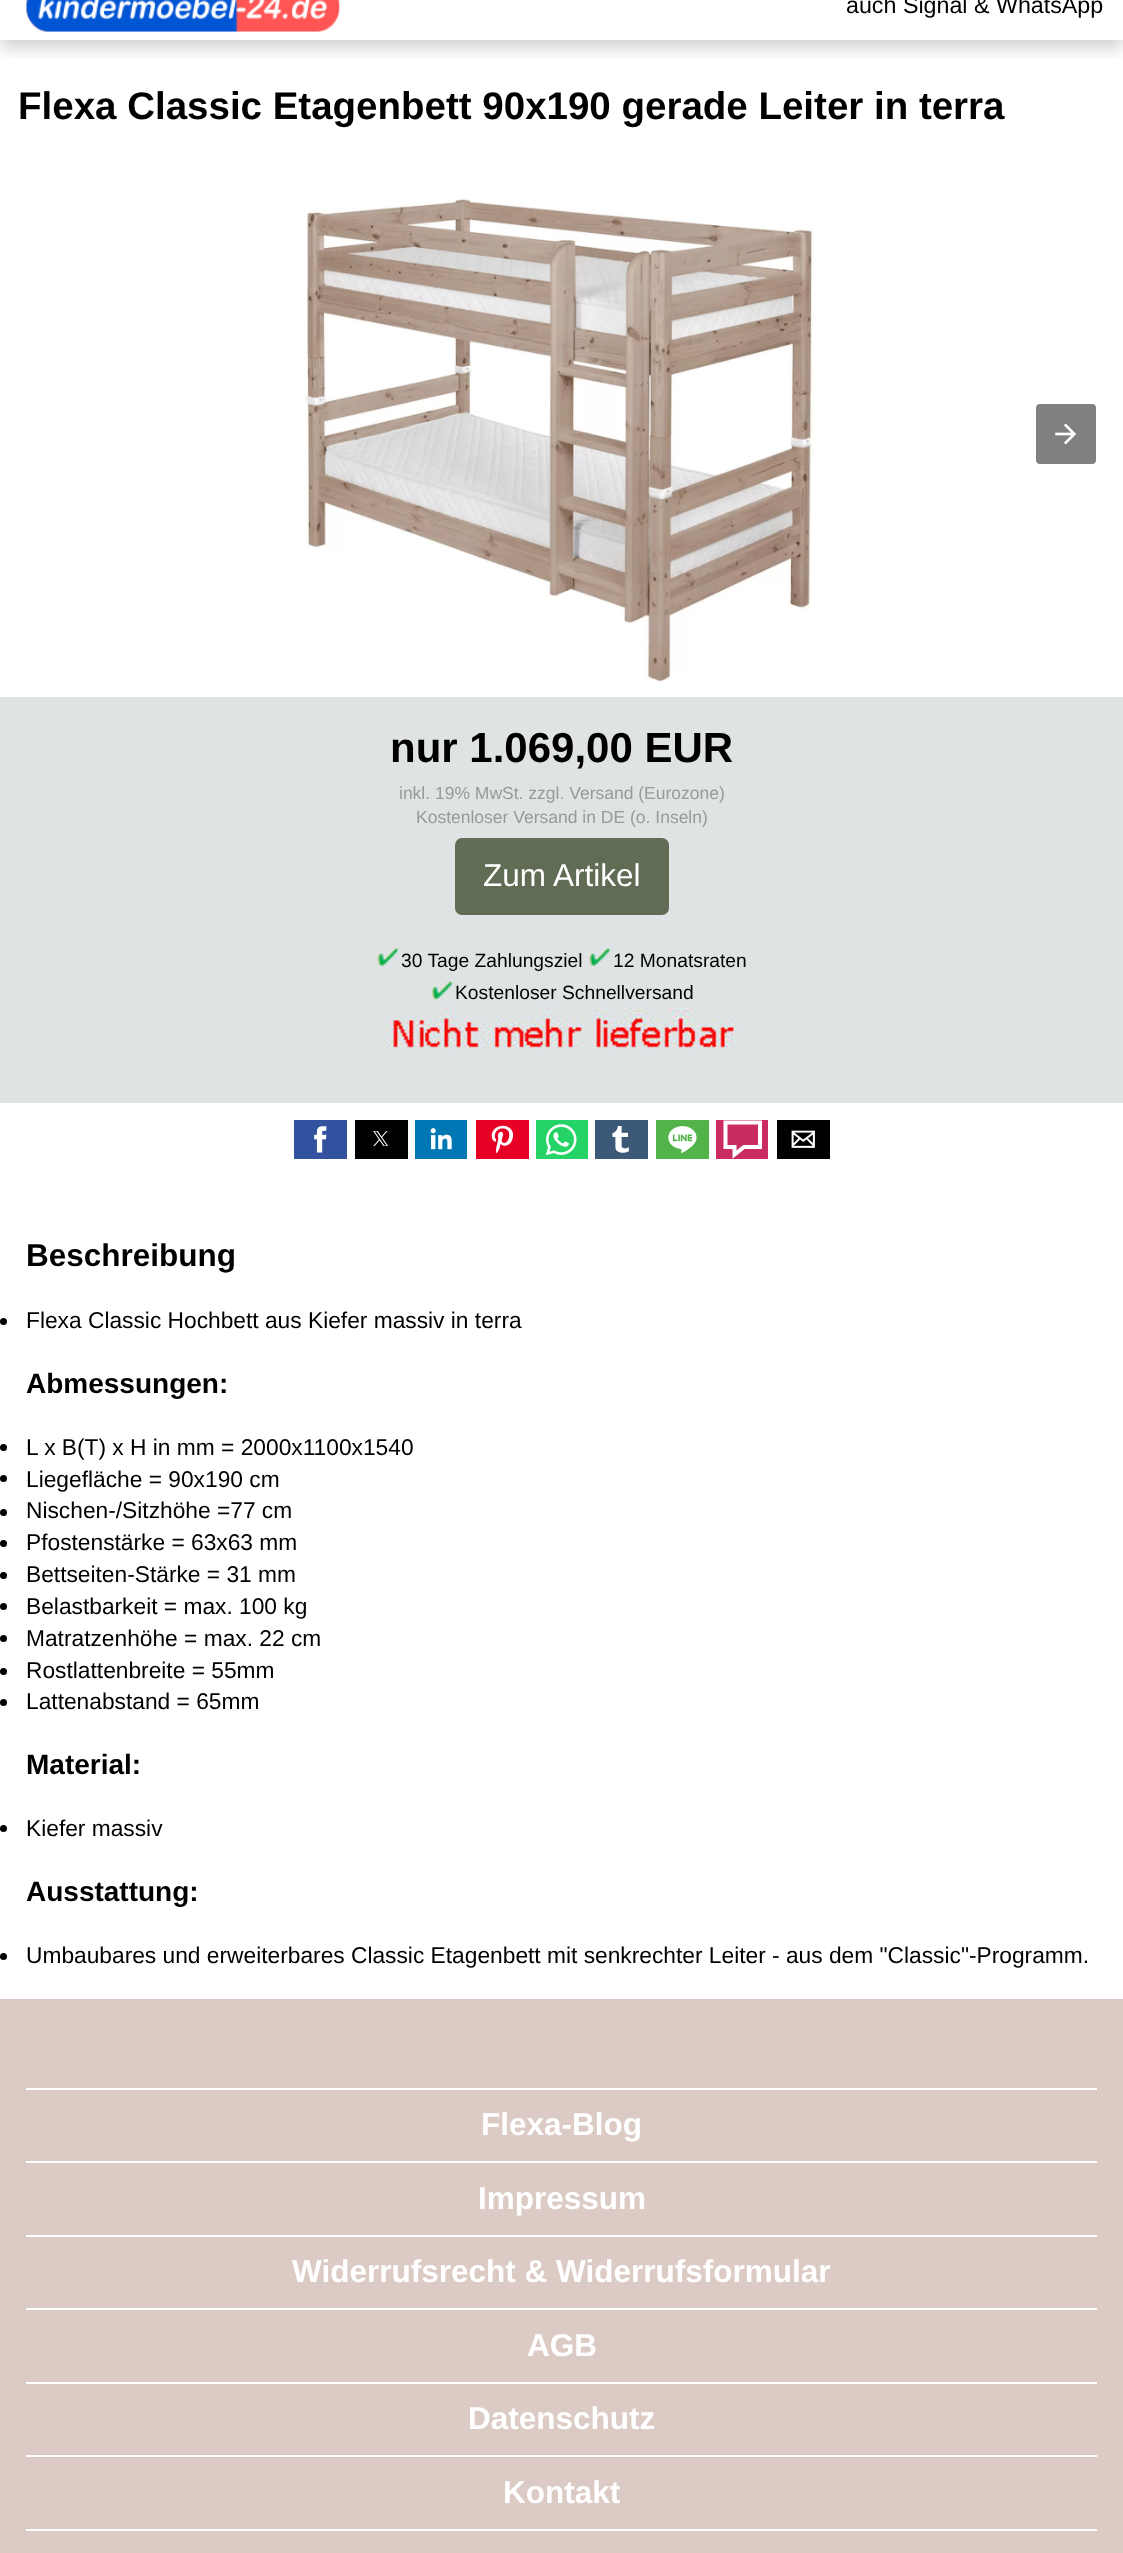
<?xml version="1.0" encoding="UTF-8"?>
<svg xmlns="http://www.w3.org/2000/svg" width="1123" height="2553">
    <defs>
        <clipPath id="clip1"><rect x="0" y="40" width="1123" height="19"/></clipPath>
        <filter id="blur1" x="-50%" y="-200%" width="200%" height="500%"><feGaussianBlur stdDeviation="9"/></filter>
    </defs>
    <rect width="100%" height="100%" fill="#FFFFFF"/>
    <g clip-path="url(#clip1)">
        <rect x="0" y="-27" width="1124" height="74" fill="#000000" fill-opacity="0.2" filter="url(#blur1)"/>
    </g>
    <image x="26" y="0" width="314" height="32" href="img_01.png"/>
    <text x="846" y="13" font-family="Liberation Sans" font-size="23.25" fill="#000000">auch Signal &amp; WhatsApp</text>
    <text x="18" y="119" font-family="Liberation Sans" font-size="38.5" font-weight="700" fill="#000000">Flexa Classic Etagenbett 90x190 gerade Leiter in terra</text>
    <image x="306" y="199" width="508" height="483" href="img_02.png"/>
    <rect x="1036" y="404" width="60" height="60" rx="4" fill="#808080"/>
    <image x="1055" y="423" width="22" height="22" href="img_03.png"/>
    <rect x="0" y="697" width="1123" height="406" fill="#DFE3E4"/>
    <text x="390" y="762" font-family="Liberation Sans" font-size="42" font-weight="700" fill="#000000">nur 1.069,00 EUR</text>
    <text x="399" y="799" font-family="Liberation Sans" font-size="17.5" fill="#999999">inkl. 19% MwSt. zzgl. Versand (Eurozone)</text>
    <text x="416" y="823" font-family="Liberation Sans" font-size="17.5" fill="#999999">Kostenloser Versand in DE (o. Inseln)</text>
    <rect x="455" y="838" width="214" height="77" rx="7" fill="#616C54"/>
    <text x="483" y="886" font-family="Liberation Sans" font-size="31.5" fill="#FFFFFF">Zum Artikel</text>
    <image x="377" y="948" width="23" height="19" href="img_04.png"/>
    <text x="401" y="967" font-family="Liberation Sans" font-size="19.25" fill="#000000">30 Tage Zahlungsziel</text>
    <image x="589" y="948" width="22" height="19" href="img_05.png"/>
    <text x="613" y="967" font-family="Liberation Sans" font-size="19.25" fill="#000000">12 Monatsraten</text>
    <image x="431" y="981" width="23" height="19" href="img_06.png"/>
    <text x="455" y="999" font-family="Liberation Sans" font-size="19.25" fill="#000000">Kostenloser Schnellversand</text>
    <image x="387" y="1007" width="350" height="42" href="img_07.png"/>
    <rect x="294" y="1120" width="53" height="39" fill="#32529F"/>
    <image x="314" y="1126" width="13" height="27" href="img_08.png"/>
    <rect x="355" y="1120" width="53" height="39" fill="#000000"/>
    <image x="373" y="1131" width="15" height="15" href="img_09.png"/>
    <rect x="415" y="1120" width="52" height="39" fill="#0077B5"/>
    <image x="430" y="1128" width="22" height="22" href="img_10.png"/>
    <rect x="476" y="1120" width="53" height="39" fill="#E60023"/>
    <image x="491" y="1125" width="23" height="29" href="img_11.png"/>
    <rect x="536" y="1120" width="52" height="39" fill="#25D366"/>
    <image x="545" y="1124" width="32" height="32" href="img_12.png"/>
    <rect x="595" y="1120" width="53" height="39" fill="#3C5A77"/>
    <image x="612" y="1126" width="17" height="27" href="img_13.png"/>
    <rect x="656" y="1120" width="53" height="39" fill="#52B448"/>
    <image x="668" y="1126" width="29" height="27" href="img_14.png"/>
    <rect x="716" y="1120" width="52" height="39" fill="#CA2B63"/>
    <path d="M 734.5 1154.5 V 1147 H 725.5 V 1122.5 H 760 V 1147 H 744 Z" fill="none" stroke="#FFFFFF" stroke-width="4"/>
    <rect x="777" y="1120" width="53" height="39" fill="#000000"/>
    <image x="791" y="1130" width="24" height="18" href="img_15.png"/>
    <text x="26" y="1266" font-family="Liberation Sans" font-size="31.5" font-weight="700" fill="#000000">Beschreibung</text>
    <circle cx="3.5" cy="1321.5" r="3.5" fill="#000000"/>
    <text x="26" y="1328" font-family="Liberation Sans" font-size="22.75" fill="#000000">Flexa Classic Hochbett aus Kiefer massiv in terra</text>
    <text x="26" y="1393" font-family="Liberation Sans" font-size="28" font-weight="700" fill="#000000">Abmessungen:</text>
    <circle cx="3.5" cy="1447.5" r="3.5" fill="#000000"/>
    <text x="26" y="1455" font-family="Liberation Sans" font-size="22.75" fill="#000000">L x B(T) x H in mm = 2000x1100x1540</text>
    <circle cx="3.5" cy="1478.5" r="3.5" fill="#000000"/>
    <text x="26" y="1487" font-family="Liberation Sans" font-size="22.75" fill="#000000">Liegefläche = 90x190 cm</text>
    <circle cx="3.5" cy="1512.5" r="3.5" fill="#000000"/>
    <text x="26" y="1518" font-family="Liberation Sans" font-size="22.75" fill="#000000">Nischen-/Sitzhöhe =77 cm</text>
    <circle cx="3.5" cy="1543.5" r="3.5" fill="#000000"/>
    <text x="26" y="1550" font-family="Liberation Sans" font-size="22.75" fill="#000000">Pfostenstärke = 63x63 mm</text>
    <circle cx="3.5" cy="1575.5" r="3.5" fill="#000000"/>
    <text x="26" y="1582" font-family="Liberation Sans" font-size="22.75" fill="#000000">Bettseiten-Stärke = 31 mm</text>
    <circle cx="3.5" cy="1606.5" r="3.5" fill="#000000"/>
    <text x="26" y="1614" font-family="Liberation Sans" font-size="22.75" fill="#000000">Belastbarkeit = max. 100 kg</text>
    <circle cx="3.5" cy="1638.5" r="3.5" fill="#000000"/>
    <text x="26" y="1646" font-family="Liberation Sans" font-size="22.75" fill="#000000">Matratzenhöhe = max. 22 cm</text>
    <circle cx="3.5" cy="1671.5" r="3.5" fill="#000000"/>
    <text x="26" y="1678" font-family="Liberation Sans" font-size="22.75" fill="#000000">Rostlattenbreite = 55mm</text>
    <circle cx="3.5" cy="1702.5" r="3.5" fill="#000000"/>
    <text x="26" y="1709" font-family="Liberation Sans" font-size="22.75" fill="#000000">Lattenabstand = 65mm</text>
    <text x="26" y="1774" font-family="Liberation Sans" font-size="28" font-weight="700" fill="#000000">Material:</text>
    <circle cx="3.5" cy="1828.5" r="3.5" fill="#000000"/>
    <text x="26" y="1836" font-family="Liberation Sans" font-size="22.75" fill="#000000">Kiefer massiv</text>
    <text x="26" y="1901" font-family="Liberation Sans" font-size="28" font-weight="700" fill="#000000">Ausstattung:</text>
    <circle cx="3.5" cy="1956.5" r="3.5" fill="#000000"/>
    <text x="26" y="1963" font-family="Liberation Sans" font-size="22.75" fill="#000000">Umbaubares und erweiterbares Classic Etagenbett mit senkrechter Leiter - aus dem "Classic"-Programm.</text>
    <rect x="0" y="1999" width="1123" height="554" fill="#DBCBC4"/>
    <rect x="26" y="2088" width="1071" height="2" fill="#FFFFFF"/>
    <rect x="26" y="2161" width="1071" height="2" fill="#FFFFFF"/>
    <text x="481" y="2135" font-family="Liberation Sans" font-size="31.5" font-weight="700" fill="#FFFFFF">Flexa-Blog</text>
    <rect x="26" y="2235" width="1071" height="2" fill="#FFFFFF"/>
    <text x="478" y="2209" font-family="Liberation Sans" font-size="31.5" font-weight="700" fill="#FFFFFF">Impressum</text>
    <rect x="26" y="2308" width="1071" height="2" fill="#FFFFFF"/>
    <text x="292" y="2282" font-family="Liberation Sans" font-size="31.5" font-weight="700" fill="#FFFFFF">Widerrufsrecht &amp; Widerrufsformular</text>
    <rect x="26" y="2382" width="1071" height="2" fill="#FFFFFF"/>
    <text x="527" y="2356" font-family="Liberation Sans" font-size="31.5" font-weight="700" fill="#FFFFFF">AGB</text>
    <rect x="26" y="2455" width="1071" height="2" fill="#FFFFFF"/>
    <text x="468" y="2429" font-family="Liberation Sans" font-size="31.5" font-weight="700" fill="#FFFFFF">Datenschutz</text>
    <rect x="26" y="2529" width="1071" height="2" fill="#FFFFFF"/>
    <text x="503" y="2503" font-family="Liberation Sans" font-size="31.5" font-weight="700" fill="#FFFFFF">Kontakt</text>
</svg>
